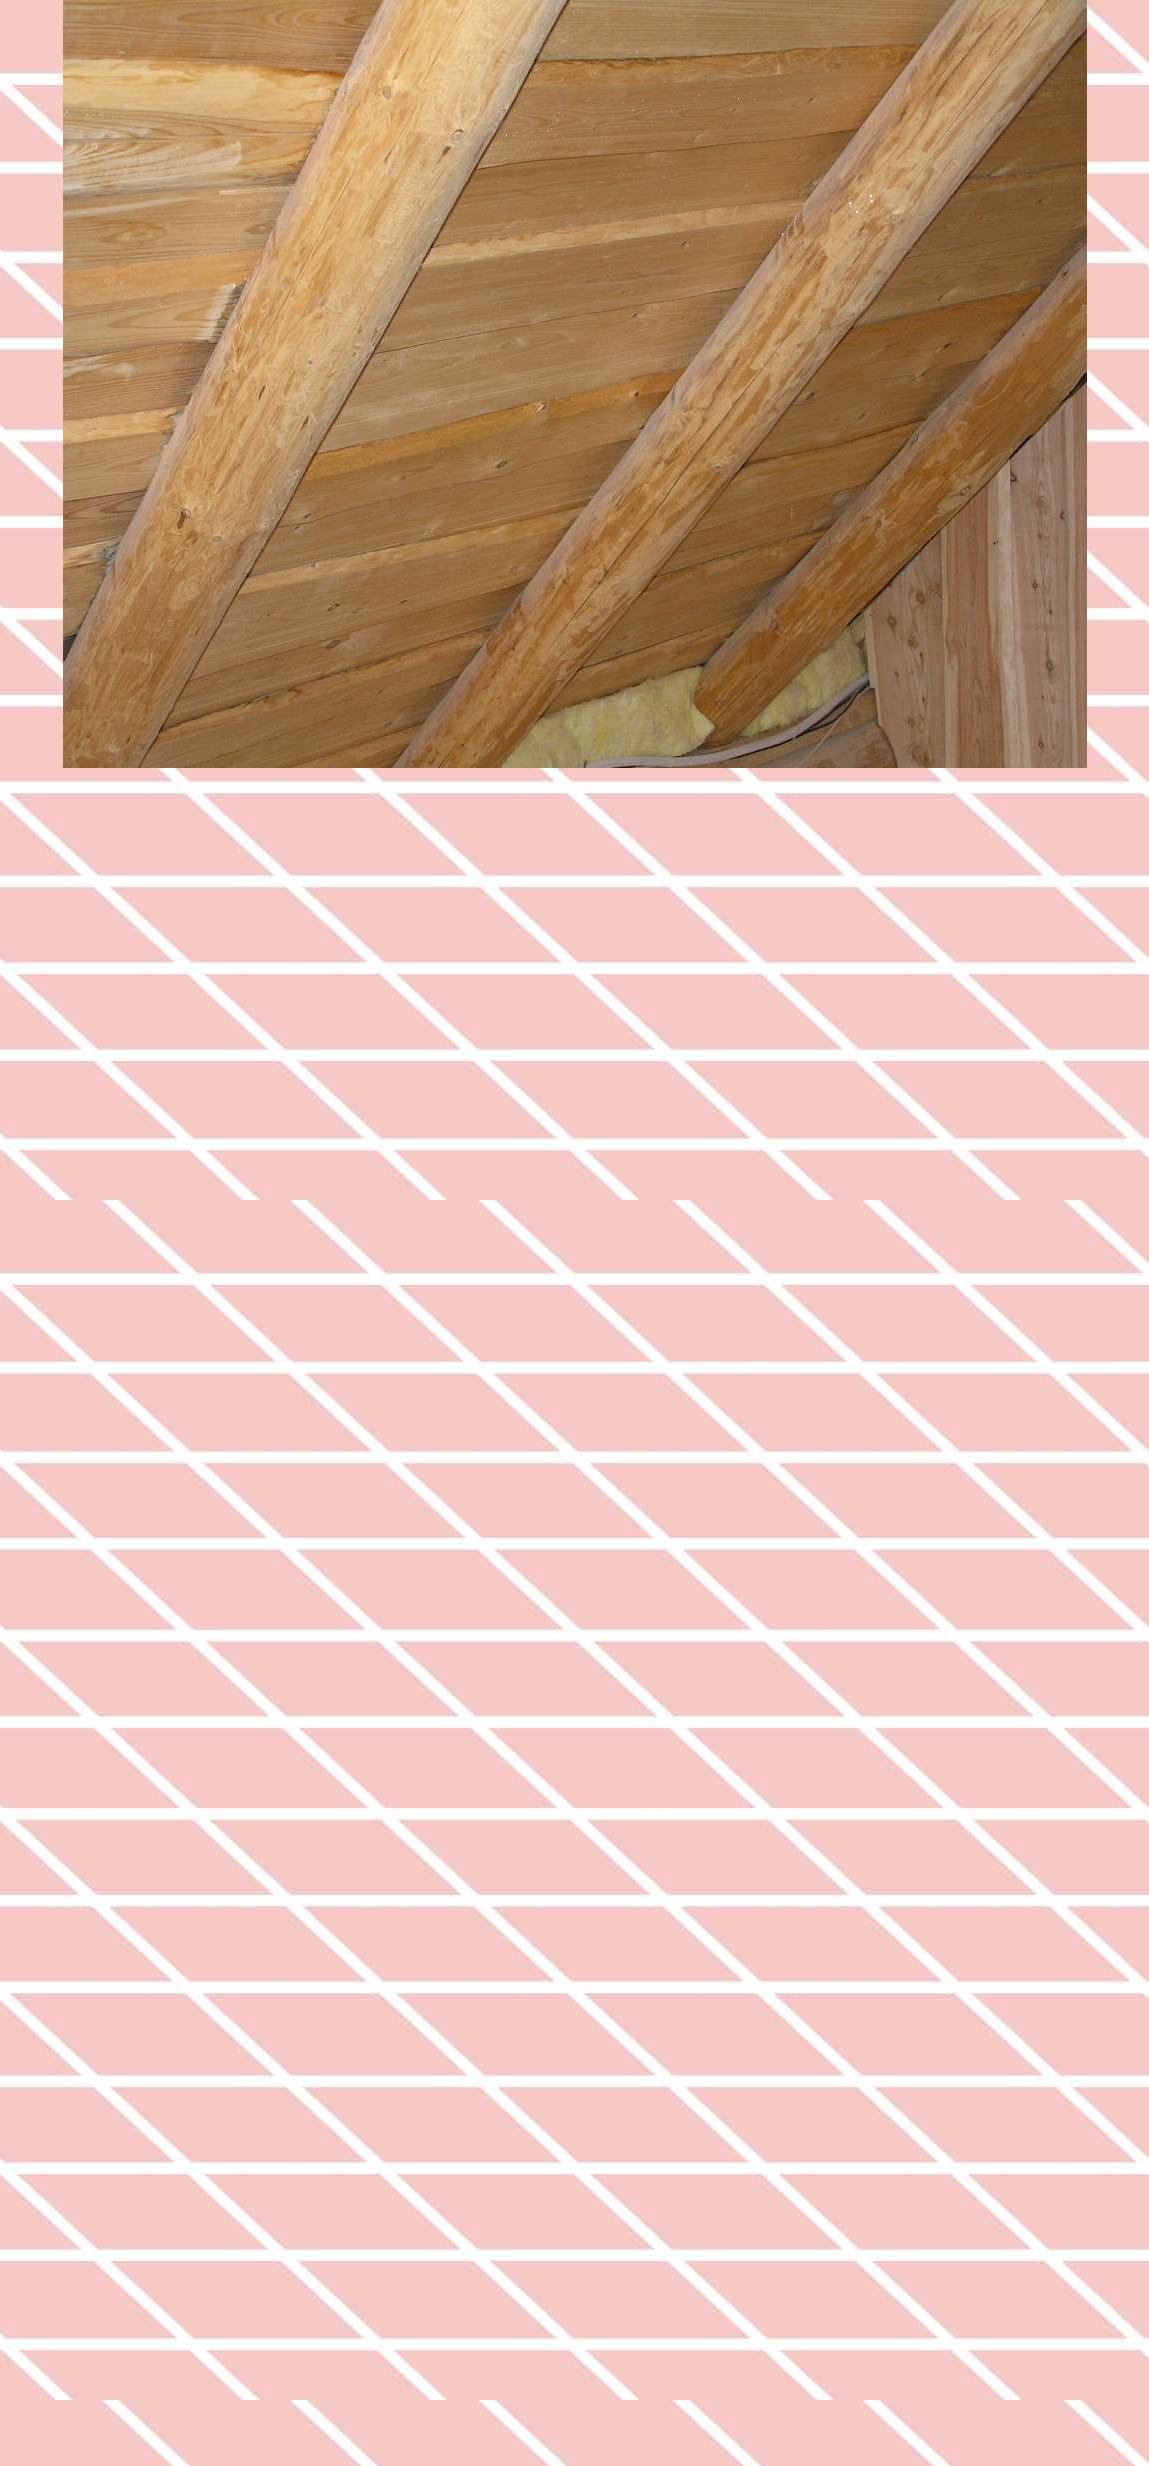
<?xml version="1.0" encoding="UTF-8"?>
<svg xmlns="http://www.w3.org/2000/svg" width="1149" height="2466">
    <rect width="100%" height="100%" fill="#FFFFFF"/>
    <image x="0" y="0" width="1149" height="2466" href="img_01.png"/>
    <image x="63" y="0" width="1024" height="768" href="img_02.png"/>
</svg>
